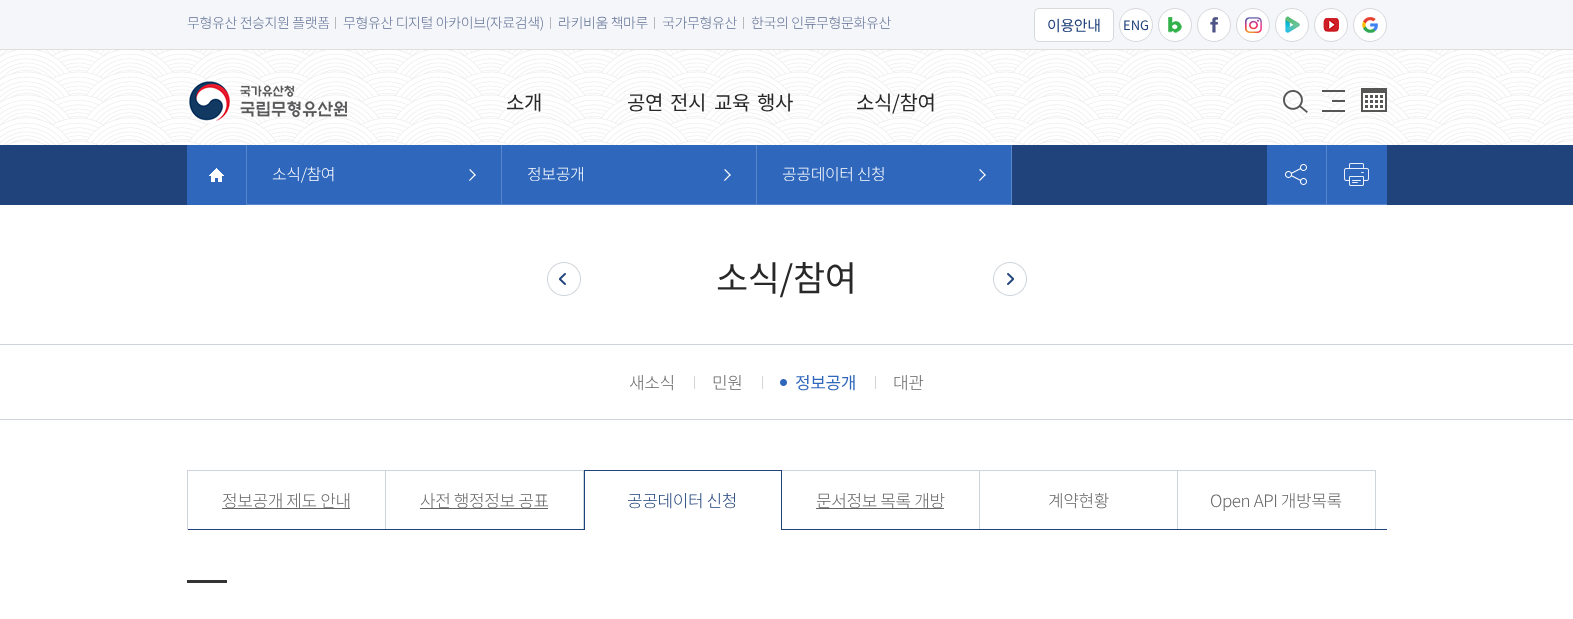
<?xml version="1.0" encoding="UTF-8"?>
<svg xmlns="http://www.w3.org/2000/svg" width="1573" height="619">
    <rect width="100%" height="100%" fill="#FFFFFF"/>
    <image x="0" y="50" width="1573" height="95" href="img_01.png"/>
    <rect x="0" y="0" width="1573" height="49" fill="#F5F6FA"/>
    <rect x="0" y="49" width="1573" height="1" fill="#DFDFDF"/>
    <rect x="335" y="17" width="1" height="12" fill="#B9B9B9"/>
    <text x="187" y="28" font-family="Noto Sans KR" font-size="14" font-weight="300" letter-spacing="-0.4" fill="#5F6F93">무형유산 전승지원 플랫폼</text>
    <rect x="550" y="17" width="1" height="12" fill="#B9B9B9"/>
    <text x="343" y="28" font-family="Noto Sans KR" font-size="14" font-weight="300" letter-spacing="-0.4" fill="#5F6F93">무형유산 디지털 아카이브(자료검색)</text>
    <rect x="654" y="17" width="1" height="12" fill="#B9B9B9"/>
    <text x="558" y="28" font-family="Noto Sans KR" font-size="14" font-weight="300" letter-spacing="-0.4" fill="#5F6F93">라키비움 책마루</text>
    <rect x="743" y="17" width="1" height="12" fill="#B9B9B9"/>
    <text x="662" y="28" font-family="Noto Sans KR" font-size="14" font-weight="300" letter-spacing="-0.4" fill="#5F6F93">국가무형유산</text>
    <text x="751" y="28" font-family="Noto Sans KR" font-size="14" font-weight="300" letter-spacing="-0.4" fill="#5F6F93">한국의 인류무형문화유산</text>
    <rect x="1034.5" y="8.5" width="79" height="33" rx="4.5" fill="#FFFFFF" stroke="#D8D9DD"/>
    <text x="1047" y="31" font-family="Noto Sans KR" font-size="15" letter-spacing="-0.4" fill="#20437B">이용안내</text>
    <circle cx="1136" cy="25" r="16.5" fill="#FFFFFF" stroke="#D8D9DD"/>
    <text x="1123" y="30" font-family="Noto Sans KR" font-size="13" fill="#20437B">ENG</text>
    <circle cx="1175" cy="25" r="16.5" fill="#FFFFFF" stroke="#D8D9DD"/>
    <image x="1168" y="17" width="14" height="16" href="img_02.png"/>
    <circle cx="1214" cy="25" r="16.5" fill="#FFFFFF" stroke="#D8D9DD"/>
    <image x="1210" y="17" width="8" height="16" href="img_03.png"/>
    <circle cx="1253" cy="25" r="16.5" fill="#FFFFFF" stroke="#D8D9DD"/>
    <image x="1245" y="17" width="17" height="16" href="img_04.png"/>
    <circle cx="1292" cy="25" r="16.5" fill="#FFFFFF" stroke="#D8D9DD"/>
    <image x="1285" y="16" width="15" height="17" href="img_05.png"/>
    <circle cx="1331" cy="25" r="16.5" fill="#FFFFFF" stroke="#D8D9DD"/>
    <image x="1323" y="18" width="16" height="14" href="img_06.png"/>
    <circle cx="1370" cy="25" r="16.5" fill="#FFFFFF" stroke="#D8D9DD"/>
    <image x="1362" y="17" width="16" height="16" href="img_07.png"/>
    <image x="188" y="81" width="159" height="43" href="img_08.png"/>
    <text x="506" y="110" font-family="Noto Sans KR" font-size="20" letter-spacing="-0.4" fill="#282828">소개</text>
    <text x="627" y="110" font-family="Noto Sans KR" font-size="20" letter-spacing="-0.4" fill="#282828">공연</text>
    <text x="670" y="110" font-family="Noto Sans KR" font-size="20" letter-spacing="-0.4" fill="#282828">전시</text>
    <text x="714" y="110" font-family="Noto Sans KR" font-size="20" letter-spacing="-0.4" fill="#282828">교육</text>
    <text x="757" y="110" font-family="Noto Sans KR" font-size="20" letter-spacing="-0.4" fill="#282828">행사</text>
    <text x="856" y="110" font-family="Noto Sans KR" font-size="20" letter-spacing="-0.4" fill="#282828">소식/참여</text>
    <image x="1283" y="90" width="25" height="23" href="img_09.png"/>
    <image x="1322" y="90" width="23" height="22" href="img_10.png"/>
    <image x="1361" y="88" width="26" height="24" href="img_11.png"/>
    <rect x="0" y="145" width="1573" height="60" fill="#20437B"/>
    <rect x="187" y="145" width="59" height="60" fill="#2F67BC"/>
    <image x="209" y="168" width="15" height="14" href="img_12.png"/>
    <rect x="246" y="145" width="1" height="60" fill="#5985C9"/>
    <rect x="247" y="145" width="254" height="59" fill="#2F67BC"/>
    <rect x="501" y="145" width="1" height="60" fill="#5985C9"/>
    <image x="469" y="169" width="7" height="12" href="img_13.png"/>
    <rect x="247" y="204" width="254" height="1" fill="#5985C9"/>
    <text x="272" y="180" font-family="Noto Sans KR" font-size="16" font-weight="300" letter-spacing="-0.4" fill="#FFFFFF">소식/참여</text>
    <rect x="502" y="145" width="254" height="59" fill="#2F67BC"/>
    <rect x="756" y="145" width="1" height="60" fill="#5985C9"/>
    <image x="724" y="169" width="7" height="12" href="img_13.png"/>
    <rect x="502" y="204" width="254" height="1" fill="#5985C9"/>
    <text x="527" y="180" font-family="Noto Sans KR" font-size="16" font-weight="300" letter-spacing="-0.4" fill="#FFFFFF">정보공개</text>
    <rect x="757" y="145" width="254" height="59" fill="#2F67BC"/>
    <rect x="1011" y="145" width="1" height="60" fill="#5985C9"/>
    <image x="979" y="169" width="7" height="12" href="img_13.png"/>
    <rect x="757" y="204" width="254" height="1" fill="#5985C9"/>
    <text x="782" y="180" font-family="Noto Sans KR" font-size="16" font-weight="300" letter-spacing="-0.4" fill="#FFFFFF">공공데이터 신청</text>
    <rect x="1267" y="145" width="120" height="60" fill="#2F67BC"/>
    <image x="1285" y="164" width="22" height="21" href="img_14.png"/>
    <path d="M 1327 145 V 205 L 1326 204 V 145 Z" fill="#5985C9"/>
    <path d="M 1327 205 H 1267 V 204 H 1326 Z" fill="#FFFFFF" fill-opacity="0.2"/>
    <image x="1344" y="163" width="25" height="23" href="img_15.png"/>
    <rect x="1327" y="204" width="60" height="1" fill="#5985C9"/>
    <rect x="0" y="344" width="1573" height="1" fill="#CED4DA"/>
    <image x="547" y="262" width="34" height="34" href="img_16.png"/>
    <image x="993" y="262" width="34" height="34" href="img_17.png"/>
    <text x="716" y="291" font-family="Noto Sans KR" font-size="35" letter-spacing="-0.4" fill="#282828">소식/참여</text>
    <rect x="0" y="419" width="1573" height="1" fill="#CED4DA"/>
    <image x="694" y="376" width="1" height="13" href="img_18.png"/>
    <text x="629" y="389" font-family="Noto Sans KR" font-size="17" font-weight="300" letter-spacing="-0.4" fill="#646464">새소식</text>
    <image x="762" y="376" width="1" height="13" href="img_18.png"/>
    <text x="712" y="389" font-family="Noto Sans KR" font-size="17" font-weight="300" letter-spacing="-0.4" fill="#646464">민원</text>
    <image x="780" y="376" width="96" height="13" href="img_19.png"/>
    <text x="795" y="389" font-family="Noto Sans KR" font-size="17" letter-spacing="-0.4" fill="#2F67BC">정보공개</text>
    <text x="893" y="389" font-family="Noto Sans KR" font-size="17" font-weight="300" letter-spacing="-0.4" fill="#646464">대관</text>
    <rect x="1376" y="529" width="11" height="1" fill="#20437B"/>
    <rect x="187" y="470" width="1" height="60" fill="#CED4DA"/>
    <rect x="188" y="470" width="396" height="1" fill="#CED4DA"/>
    <rect x="385" y="470" width="1" height="60" fill="#CED4DA"/>
    <rect x="188" y="529" width="198" height="1" fill="#20437B"/>
    <rect x="222" y="508" width="128" height="1" fill="#646464"/>
    <text x="222" y="507" font-family="Noto Sans KR" font-size="17" font-weight="300" letter-spacing="-0.4" fill="#646464">정보공개 제도 안내</text>
    <rect x="583" y="470" width="1" height="60" fill="#CED4DA"/>
    <rect x="386" y="529" width="198" height="1" fill="#20437B"/>
    <rect x="420" y="508" width="128" height="1" fill="#646464"/>
    <text x="420" y="507" font-family="Noto Sans KR" font-size="17" font-weight="300" letter-spacing="-0.4" fill="#646464">사전 행정정보 공표</text>
    <rect x="584" y="470" width="198" height="1" fill="#20437B"/>
    <rect x="781" y="470" width="1" height="60" fill="#20437B"/>
    <rect x="584" y="470" width="1" height="60" fill="#20437B"/>
    <text x="627" y="507" font-family="Noto Sans KR" font-size="17" font-weight="300" letter-spacing="-0.4" fill="#20437B">공공데이터 신청</text>
    <rect x="782" y="470" width="594" height="1" fill="#CED4DA"/>
    <rect x="979" y="470" width="1" height="60" fill="#CED4DA"/>
    <rect x="782" y="529" width="198" height="1" fill="#20437B"/>
    <rect x="816" y="508" width="128" height="1" fill="#646464"/>
    <text x="816" y="507" font-family="Noto Sans KR" font-size="17" font-weight="300" letter-spacing="-0.4" fill="#646464">문서정보 목록 개방</text>
    <rect x="1177" y="470" width="1" height="60" fill="#CED4DA"/>
    <rect x="980" y="529" width="198" height="1" fill="#20437B"/>
    <text x="1048" y="507" font-family="Noto Sans KR" font-size="17" font-weight="300" letter-spacing="-0.4" fill="#646464">계약현황</text>
    <rect x="1375" y="470" width="1" height="60" fill="#CED4DA"/>
    <rect x="1178" y="529" width="198" height="1" fill="#20437B"/>
    <text x="1210" y="507" font-family="Noto Sans KR" font-size="17" font-weight="300" letter-spacing="-0.4" fill="#646464">Open API 개방목록</text>
    <rect x="187" y="580" width="40" height="3" fill="#343434"/>
</svg>
